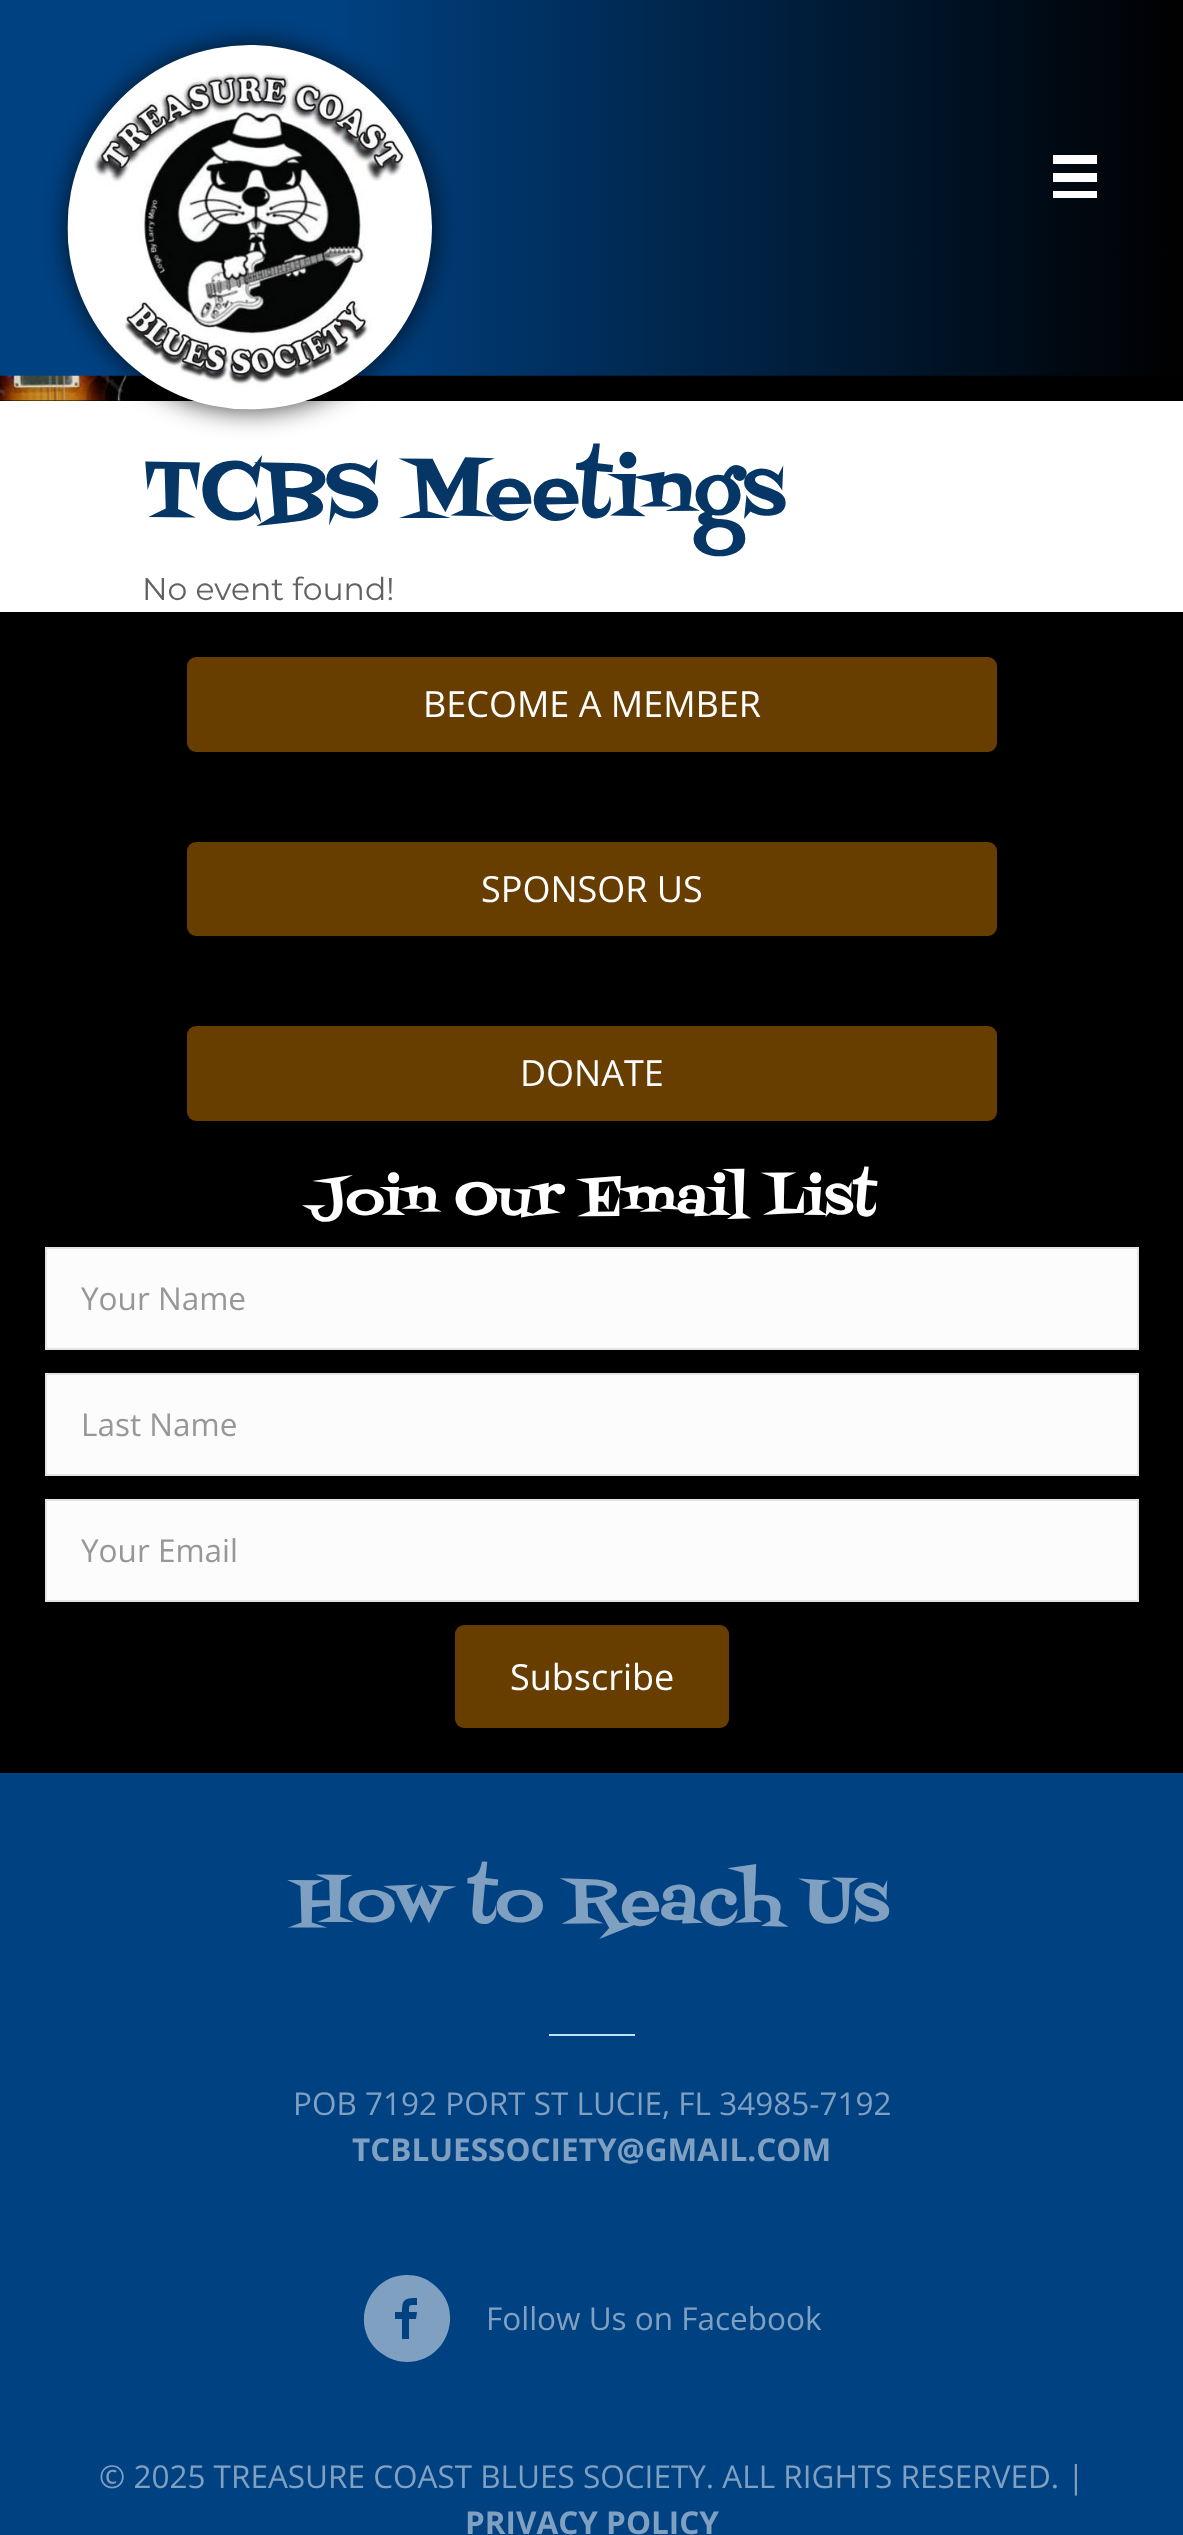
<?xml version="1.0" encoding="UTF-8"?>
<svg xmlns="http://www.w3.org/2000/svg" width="1183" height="2535">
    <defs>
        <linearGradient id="g1" gradientUnits="userSpaceOnUse" x1="0" y1="188" x2="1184" y2="188"><stop offset="0.28" stop-color="#004182"/><stop offset="1" stop-color="#000000"/></linearGradient>
        <filter id="blur1" x="-50%" y="-200%" width="200%" height="500%"><feGaussianBlur stdDeviation="13.5"/></filter>
    </defs>
    <rect width="100%" height="100%" fill="#004182"/>
    <rect x="348" y="0" width="835" height="376" fill="url(#g1)"/>
    <rect x="0" y="376" width="1183" height="25" fill="#000000"/>
    <image x="0" y="375" width="1082" height="26" href="img_02.png"/>
    <rect x="0" y="376" width="127" height="25" fill="#000000" fill-opacity="0.12"/>
    <rect x="0" y="401" width="1183" height="211" fill="#FFFFFF"/>
    <rect x="68" y="45" width="364" height="365" rx="182" fill="#000000" fill-opacity="0.75" filter="url(#blur1)"/>
    <image x="67" y="45" width="365" height="365" href="img_01.png"/>
    <rect x="1053" y="155" width="44" height="9" fill="#FFFFFF"/>
    <rect x="1053" y="173" width="44" height="9" fill="#FFFFFF"/>
    <rect x="1053" y="191" width="44" height="7" fill="#FFFFFF"/>
    <text x="142" y="516" font-family="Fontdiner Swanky" font-size="81" fill="#063665">TCBS Meetings</text>
    <text x="142" y="600" font-family="Montserrat" font-size="31.5" fill="#626262">No event found!</text>
    <rect x="0" y="612" width="1183" height="1161" fill="#000000"/>
    <rect x="187" y="657" width="810" height="95" rx="9" fill="#673D00"/>
    <text x="423" y="717" font-family="Open Sans" font-size="36" fill="#FFFFFF">BECOME A MEMBER</text>
    <rect x="187" y="842" width="810" height="94" rx="9" fill="#673D00"/>
    <text x="481" y="902" font-family="Open Sans" font-size="36" fill="#FFFFFF">SPONSOR US</text>
    <rect x="187" y="1026" width="810" height="95" rx="9" fill="#673D00"/>
    <text x="520" y="1086" font-family="Open Sans" font-size="36" fill="#FFFFFF">DONATE</text>
    <text x="308" y="1215" font-family="Fontdiner Swanky" font-size="54" fill="#FFFFFF">Join Our Email List</text>
    <rect x="46" y="1248" width="1092" height="101" fill="#FCFCFC" stroke="#E3E3E3" stroke-width="2"/>
    <text x="81" y="1310" font-family="Open Sans" font-size="31.5" fill="#979797">Your Name</text>
    <rect x="46" y="1374" width="1092" height="101" fill="#FCFCFC" stroke="#E3E3E3" stroke-width="2"/>
    <text x="81" y="1436" font-family="Open Sans" font-size="31.5" fill="#979797">Last Name</text>
    <rect x="46" y="1500" width="1092" height="101" fill="#FCFCFC" stroke="#E3E3E3" stroke-width="2"/>
    <text x="81" y="1562" font-family="Open Sans" font-size="31.5" fill="#979797">Your Email</text>
    <rect x="455" y="1625" width="274" height="103" rx="9" fill="#673D00"/>
    <text x="510" y="1690" font-family="Open Sans" font-size="36" fill="#FFFFFF">Subscribe</text>
    <text x="294" y="1922" font-family="Fontdiner Swanky" font-size="67.5" fill="#80A0C1">How to Reach Us</text>
    <rect x="549" y="2034" width="86" height="2" fill="#B9E5FB"/>
    <text x="293" y="2115" font-family="Open Sans" font-size="31.5" fill="#80A0C1">POB 7192 PORT ST LUCIE, FL 34985-7192</text>
    <text x="352" y="2161" font-family="Open Sans" font-size="31.5" font-weight="700" fill="#80A0C1">TCBLUESSOCIETY@GMAIL.COM</text>
    <path d="M 407 2275 C 366 2275 348 2329 381 2353 C 389 2359 398 2362 407 2362 C 448 2362 466 2309 433 2284 C 426 2278 417 2275 407 2275 Z M 417 2305 C 409 2305 409 2304 409 2312 H 417 L 416 2319 H 409 V 2339 H 402 V 2319 H 395 V 2312 H 402 C 402 2299 405 2298 417 2298 Z" fill="#80A0C1"/>
    <text x="486" y="2330" font-family="Open Sans" font-size="31.5" fill="#80A0C1">Follow Us on Facebook</text>
    <text x="99" y="2488" font-family="Open Sans" font-size="31.5" fill="#80A0C1">© 2025 TREASURE COAST BLUES SOCIETY. ALL RIGHTS RESERVED. |</text>
    <text x="465" y="2534" font-family="Open Sans" font-size="31.5" font-weight="700" fill="#80A0C1">PRIVACY POLICY</text>
</svg>
